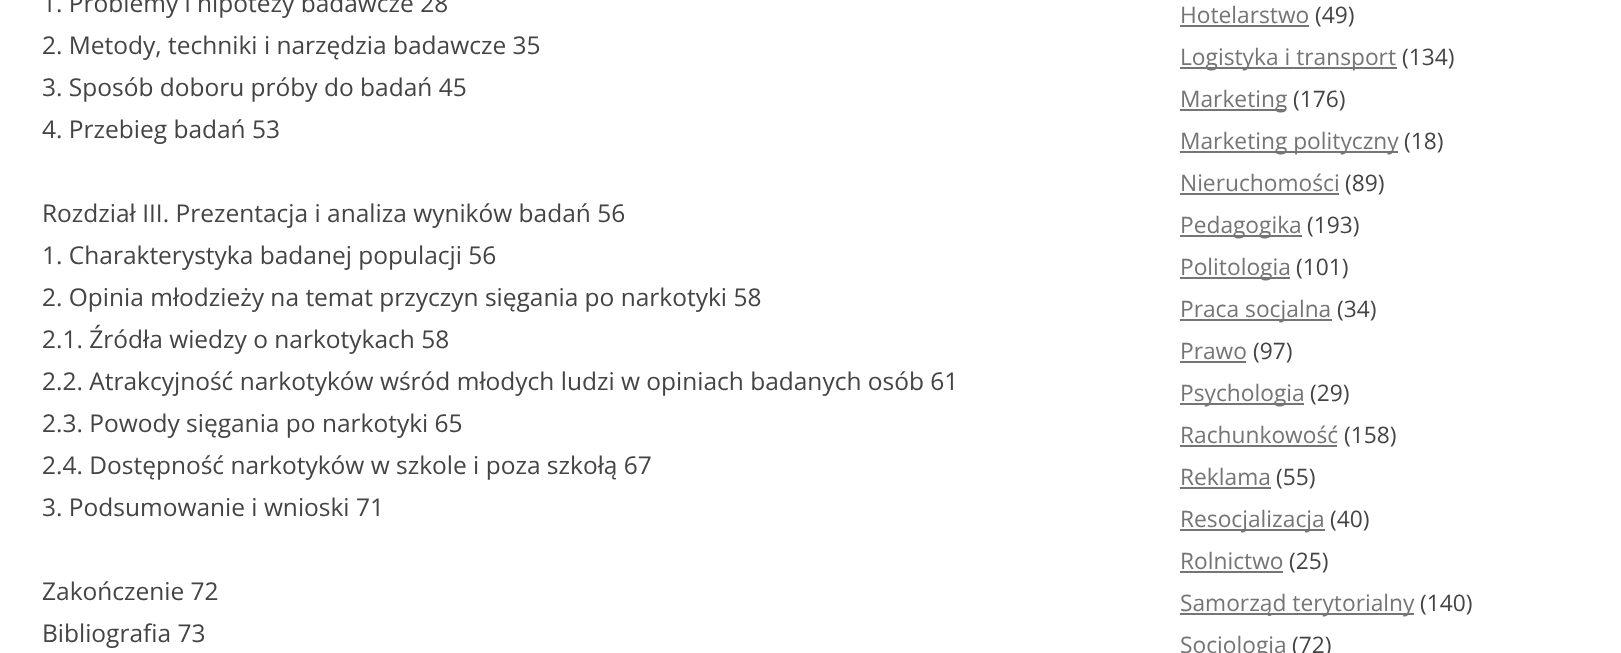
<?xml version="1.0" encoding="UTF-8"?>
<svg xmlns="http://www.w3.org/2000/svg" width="1621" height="653">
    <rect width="100%" height="100%" fill="#FFFFFF"/>
    <text font-family="Open Sans" font-size="24.5" fill="#444444">
        <tspan x="42" y="12">1. Problemy i hipotezy badawcze 28</tspan>
        <tspan x="42" y="54">2. Metody, techniki i narzędzia badawcze 35</tspan>
        <tspan x="42" y="96">3. Sposób doboru próby do badań 45</tspan>
        <tspan x="42" y="138">4. Przebieg badań 53</tspan>
    </text>
    <text font-family="Open Sans" font-size="24.5" fill="#444444">
        <tspan x="42" y="222">Rozdział III. Prezentacja i analiza wyników badań 56</tspan>
        <tspan x="42" y="264">1. Charakterystyka badanej populacji 56</tspan>
        <tspan x="42" y="306">2. Opinia młodzieży na temat przyczyn sięgania po narkotyki 58</tspan>
        <tspan x="42" y="348">2.1. Źródła wiedzy o narkotykach 58</tspan>
        <tspan x="42" y="390">2.2. Atrakcyjność narkotyków wśród młodych ludzi w opiniach badanych osób 61</tspan>
        <tspan x="42" y="432">2.3. Powody sięgania po narkotyki 65</tspan>
        <tspan x="42" y="474">2.4. Dostępność narkotyków w szkole i poza szkołą 67</tspan>
        <tspan x="42" y="516">3. Podsumowanie i wnioski 71</tspan>
    </text>
    <text font-family="Open Sans" font-size="24.5" fill="#444444">
        <tspan x="42" y="600">Zakończenie 72</tspan>
        <tspan x="42" y="642">Bibliografia 73</tspan>
    </text>
    <text x="1180" y="23" font-family="Open Sans" font-size="22.75" fill="#757575">Hotelarstwo</text>
    <rect x="1180" y="25" width="129" height="2" fill="#757575"/>
    <text x="1315" y="23" font-family="Open Sans" font-size="22.75" fill="#444444">(49)</text>
    <rect x="1180" y="67" width="217" height="2" fill="#757575"/>
    <text x="1180" y="65" font-family="Open Sans" font-size="22.75" fill="#757575">Logistyka i transport</text>
    <text x="1402" y="65" font-family="Open Sans" font-size="22.75" fill="#444444">(134)</text>
    <rect x="1180" y="109" width="106" height="2" fill="#757575"/>
    <text x="1180" y="107" font-family="Open Sans" font-size="22.75" fill="#757575">Marketing</text>
    <text x="1293" y="107" font-family="Open Sans" font-size="22.75" fill="#444444">(176)</text>
    <rect x="1180" y="151" width="218" height="2" fill="#757575"/>
    <text x="1180" y="149" font-family="Open Sans" font-size="22.75" fill="#757575">Marketing polityczny</text>
    <text x="1404" y="149" font-family="Open Sans" font-size="22.75" fill="#444444">(18)</text>
    <text x="1180" y="191" font-family="Open Sans" font-size="22.75" fill="#757575">Nieruchomości</text>
    <rect x="1180" y="193" width="159" height="2" fill="#757575"/>
    <text x="1345" y="191" font-family="Open Sans" font-size="22.75" fill="#444444">(89)</text>
    <rect x="1180" y="235" width="122" height="2" fill="#757575"/>
    <text x="1180" y="233" font-family="Open Sans" font-size="22.75" fill="#757575">Pedagogika</text>
    <text x="1307" y="233" font-family="Open Sans" font-size="22.75" fill="#444444">(193)</text>
    <rect x="1180" y="277" width="110" height="2" fill="#757575"/>
    <text x="1180" y="275" font-family="Open Sans" font-size="22.75" fill="#757575">Politologia</text>
    <text x="1296" y="275" font-family="Open Sans" font-size="22.75" fill="#444444">(101)</text>
    <rect x="1180" y="319" width="152" height="2" fill="#757575"/>
    <text x="1180" y="317" font-family="Open Sans" font-size="22.75" fill="#757575">Praca socjalna</text>
    <text x="1337" y="317" font-family="Open Sans" font-size="22.75" fill="#444444">(34)</text>
    <text x="1180" y="359" font-family="Open Sans" font-size="22.75" fill="#757575">Prawo</text>
    <rect x="1180" y="361" width="66" height="2" fill="#757575"/>
    <text x="1253" y="359" font-family="Open Sans" font-size="22.75" fill="#444444">(97)</text>
    <rect x="1180" y="403" width="124" height="2" fill="#757575"/>
    <text x="1180" y="401" font-family="Open Sans" font-size="22.75" fill="#757575">Psychologia</text>
    <text x="1310" y="401" font-family="Open Sans" font-size="22.75" fill="#444444">(29)</text>
    <text x="1180" y="443" font-family="Open Sans" font-size="22.75" fill="#757575">Rachunkowość</text>
    <rect x="1180" y="445" width="157" height="2" fill="#757575"/>
    <text x="1344" y="443" font-family="Open Sans" font-size="22.75" fill="#444444">(158)</text>
    <text x="1180" y="485" font-family="Open Sans" font-size="22.75" fill="#757575">Reklama</text>
    <rect x="1180" y="487" width="91" height="2" fill="#757575"/>
    <text x="1276" y="485" font-family="Open Sans" font-size="22.75" fill="#444444">(55)</text>
    <rect x="1180" y="529" width="145" height="2" fill="#757575"/>
    <text x="1180" y="527" font-family="Open Sans" font-size="22.75" fill="#757575">Resocjalizacja</text>
    <text x="1330" y="527" font-family="Open Sans" font-size="22.75" fill="#444444">(40)</text>
    <text x="1180" y="569" font-family="Open Sans" font-size="22.75" fill="#757575">Rolnictwo</text>
    <rect x="1180" y="571" width="103" height="2" fill="#757575"/>
    <text x="1289" y="569" font-family="Open Sans" font-size="22.75" fill="#444444">(25)</text>
    <rect x="1180" y="613" width="234" height="2" fill="#757575"/>
    <text x="1180" y="611" font-family="Open Sans" font-size="22.75" fill="#757575">Samorząd terytorialny</text>
    <text x="1420" y="611" font-family="Open Sans" font-size="22.75" fill="#444444">(140)</text>
    <text x="1180" y="653" font-family="Open Sans" font-size="22.75" fill="#757575">Socjologia</text>
    <text x="1292" y="653" font-family="Open Sans" font-size="22.75" fill="#444444">(72)</text>
</svg>
